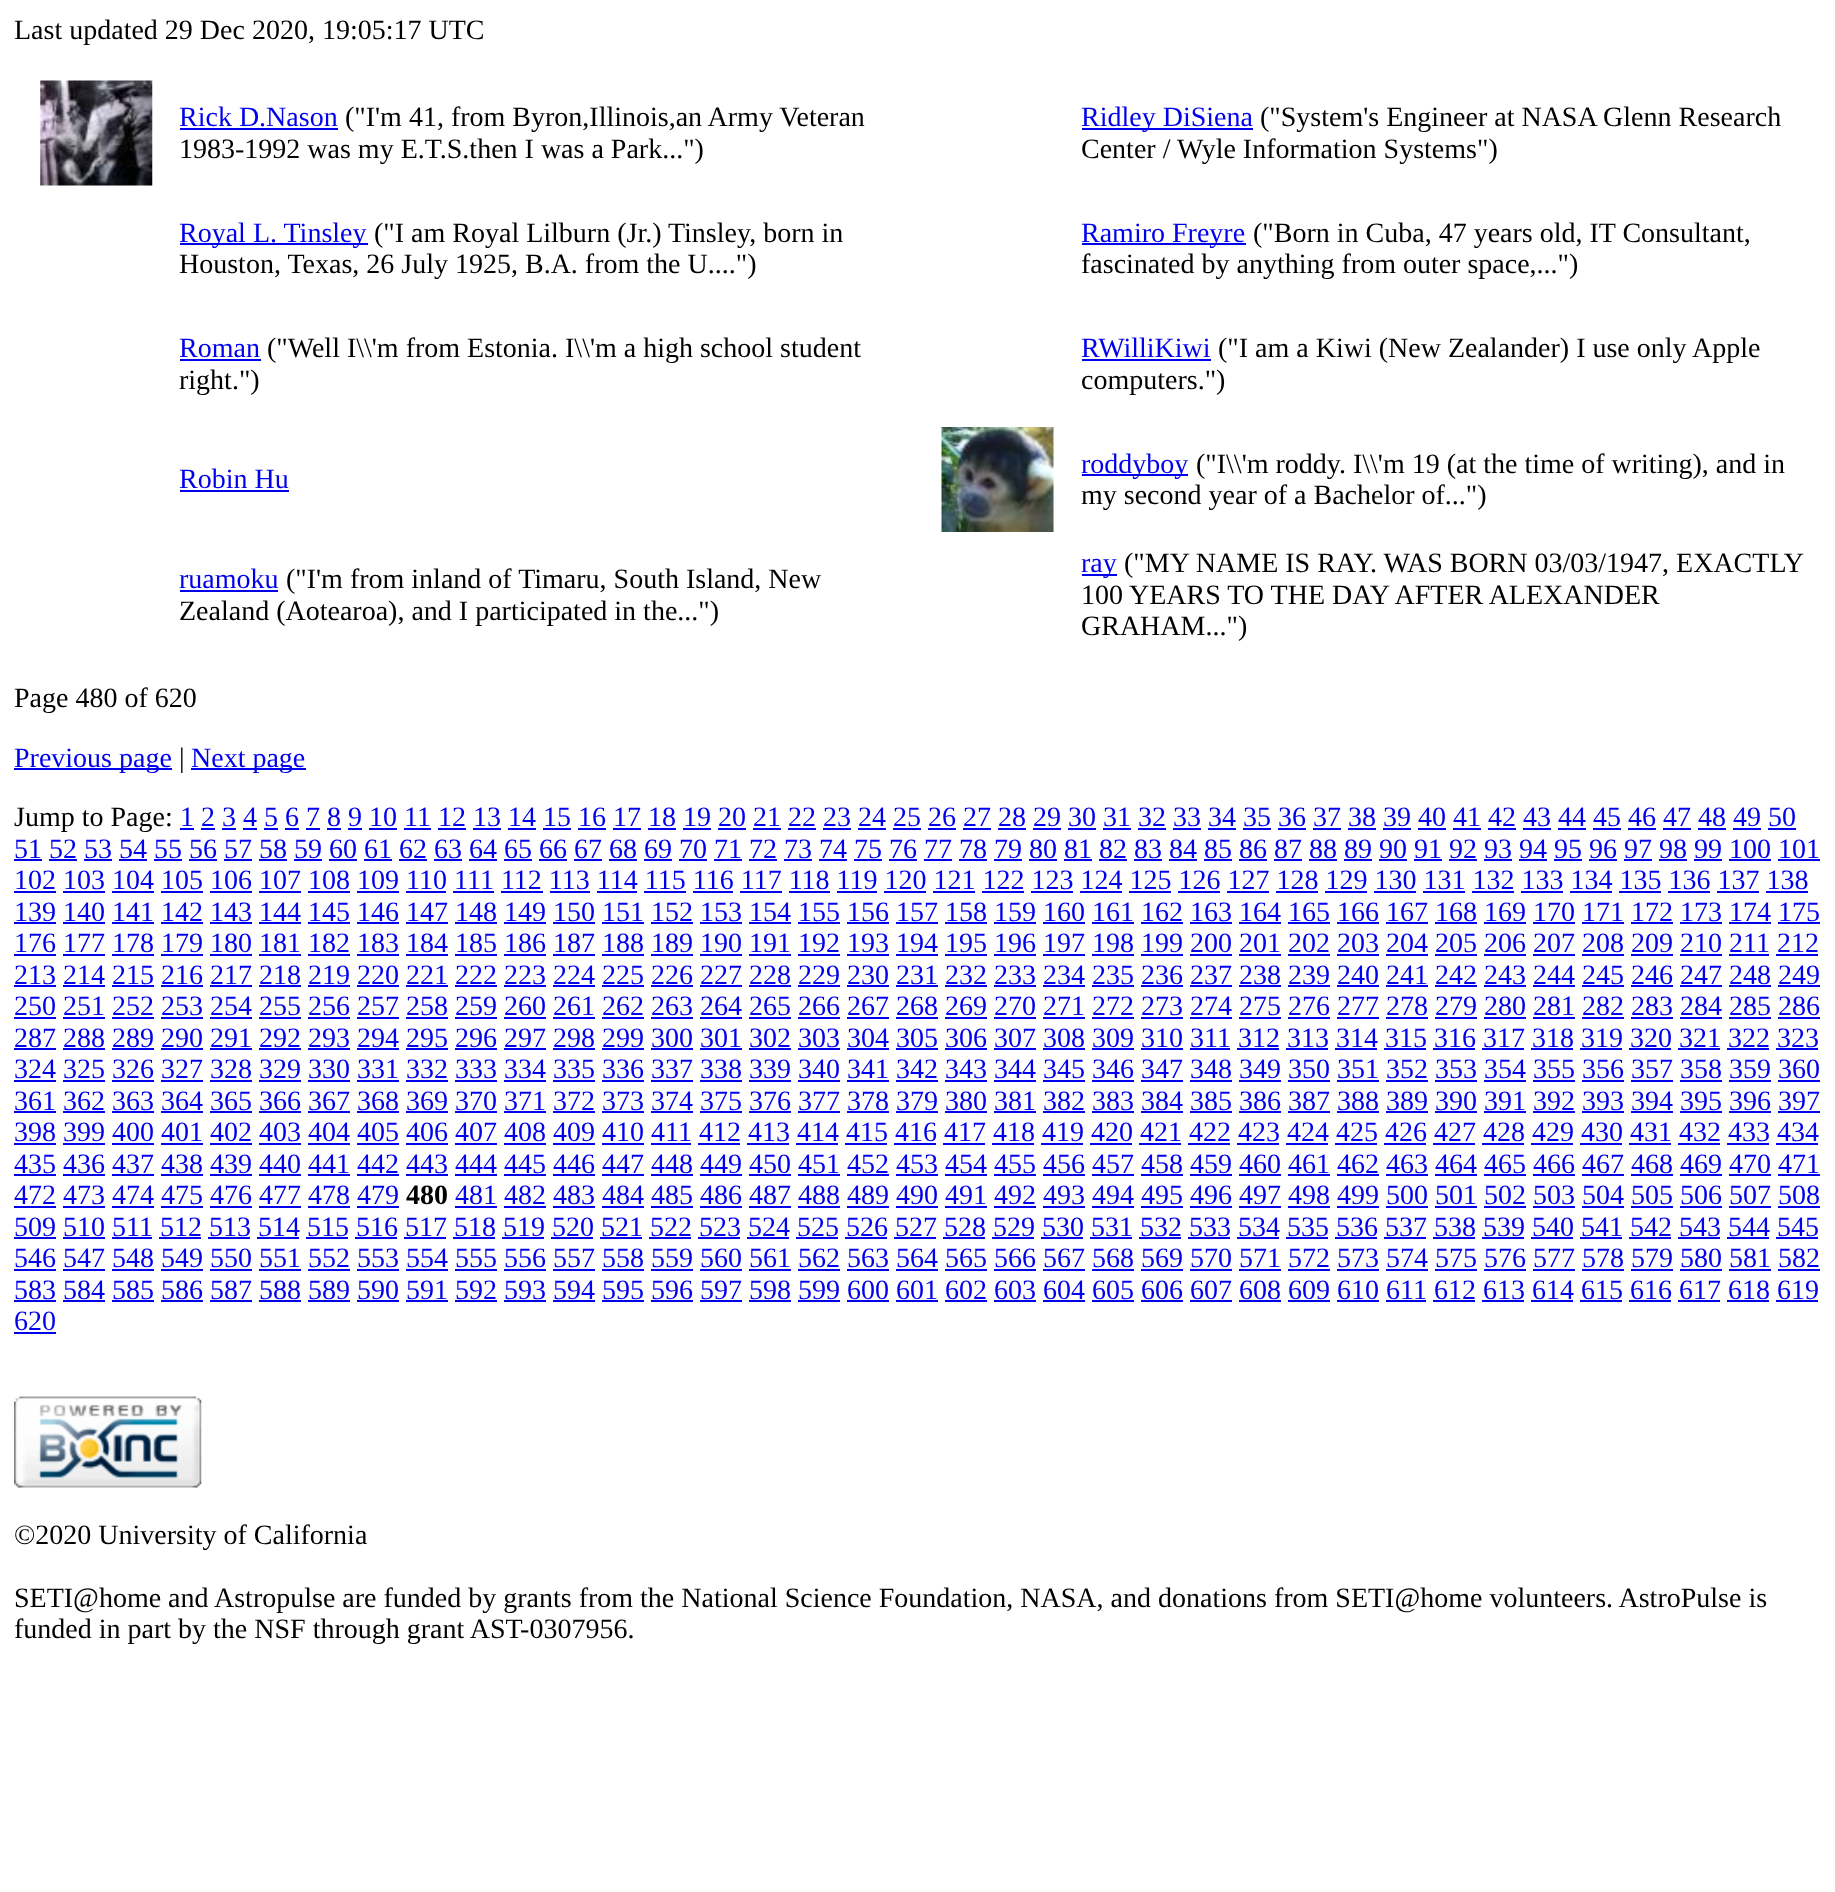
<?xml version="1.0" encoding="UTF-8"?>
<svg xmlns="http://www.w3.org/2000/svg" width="1835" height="1892">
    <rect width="100%" height="100%" fill="#FFFFFF"/>
    <text x="14" y="39" font-family="Liberation Serif" font-size="28" fill="#000000">Last updated 29 Dec 2020, 19:05:17 UTC</text>
    <image x="40" y="80" width="113" height="106" href="img_01.png"/>
    <text x="179" y="126" font-family="Liberation Serif" font-size="28" fill="#0000EE">Rick D.Nason</text>
    <rect x="180" y="128" width="158" height="2" fill="#0000EE"/>
    <text x="345" y="126" font-family="Liberation Serif" font-size="28" fill="#000000">("I'm 41, from Byron,Illinois,an Army Veteran</text>
    <text x="179" y="158" font-family="Liberation Serif" font-size="28" fill="#000000">1983-1992 was my E.T.S.then I was a Park...")</text>
    <rect x="1082" y="128" width="171" height="2" fill="#0000EE"/>
    <text x="1081" y="126" font-family="Liberation Serif" font-size="28" fill="#0000EE">Ridley DiSiena</text>
    <text x="1260" y="126" font-family="Liberation Serif" font-size="28" fill="#000000">("System's Engineer at NASA Glenn Research</text>
    <text x="1081" y="158" font-family="Liberation Serif" font-size="28" fill="#000000">Center / Wyle Information Systems")</text>
    <rect x="180" y="243" width="188" height="2" fill="#0000EE"/>
    <text x="179" y="242" font-family="Liberation Serif" font-size="28" fill="#0000EE">Royal L. Tinsley</text>
    <text x="374" y="242" font-family="Liberation Serif" font-size="28" fill="#000000">("I am Royal Lilburn (Jr.) Tinsley, born in</text>
    <text x="179" y="273" font-family="Liberation Serif" font-size="28" fill="#000000">Houston, Texas, 26 July 1925, B.A. from the U....")</text>
    <rect x="1082" y="243" width="164" height="2" fill="#0000EE"/>
    <text x="1081" y="242" font-family="Liberation Serif" font-size="28" fill="#0000EE">Ramiro Freyre</text>
    <text x="1253" y="242" font-family="Liberation Serif" font-size="28" fill="#000000">("Born in Cuba, 47 years old, IT Consultant,</text>
    <text x="1081" y="273" font-family="Liberation Serif" font-size="28" fill="#000000">fascinated by anything from outer space,...")</text>
    <text x="179" y="357" font-family="Liberation Serif" font-size="28" fill="#0000EE">Roman</text>
    <rect x="180" y="359" width="81" height="2" fill="#0000EE"/>
    <text x="267" y="357" font-family="Liberation Serif" font-size="28" fill="#000000">("Well I\\'m from Estonia. I\\'m a high school student</text>
    <text x="179" y="389" font-family="Liberation Serif" font-size="28" fill="#000000">right.")</text>
    <text x="1081" y="357" font-family="Liberation Serif" font-size="28" fill="#0000EE">RWilliKiwi</text>
    <rect x="1082" y="359" width="129" height="2" fill="#0000EE"/>
    <text x="1218" y="357" font-family="Liberation Serif" font-size="28" fill="#000000">("I am a Kiwi (New Zealander) I use only Apple</text>
    <text x="1081" y="389" font-family="Liberation Serif" font-size="28" fill="#000000">computers.")</text>
    <text x="179" y="488" font-family="Liberation Serif" font-size="28" fill="#0000EE">Robin Hu</text>
    <rect x="180" y="490" width="109" height="2" fill="#0000EE"/>
    <image x="941" y="427" width="113" height="105" href="img_02.png"/>
    <rect x="1082" y="474" width="106" height="2" fill="#0000EE"/>
    <text x="1081" y="473" font-family="Liberation Serif" font-size="28" fill="#0000EE">roddyboy</text>
    <text x="1196" y="473" font-family="Liberation Serif" font-size="28" fill="#000000">("I\\'m roddy. I\\'m 19 (at the time of writing), and in</text>
    <text x="1081" y="504" font-family="Liberation Serif" font-size="28" fill="#000000">my second year of a Bachelor of...")</text>
    <text x="179" y="588" font-family="Liberation Serif" font-size="28" fill="#0000EE">ruamoku</text>
    <rect x="180" y="590" width="98" height="2" fill="#0000EE"/>
    <text x="286" y="588" font-family="Liberation Serif" font-size="28" fill="#000000">("I'm from inland of Timaru, South Island, New</text>
    <text x="179" y="620" font-family="Liberation Serif" font-size="28" fill="#000000">Zealand (Aotearoa), and I participated in the...")</text>
    <rect x="1082" y="574" width="35" height="2" fill="#0000EE"/>
    <text x="1081" y="572" font-family="Liberation Serif" font-size="28" fill="#0000EE">ray</text>
    <text x="1124" y="572" font-family="Liberation Serif" font-size="28" fill="#000000">("MY NAME IS RAY. WAS BORN 03/03/1947, EXACTLY</text>
    <text font-family="Liberation Serif" font-size="28" fill="#000000">
        <tspan x="1081" y="604">100 YEARS TO THE DAY AFTER ALEXANDER</tspan>
        <tspan x="1081" y="635">GRAHAM...")</tspan>
    </text>
    <text x="14" y="707" font-family="Liberation Serif" font-size="28" fill="#000000">Page 480 of 620</text>
    <rect x="14" y="768" width="158" height="2" fill="#0000EE"/>
    <text x="14" y="767" font-family="Liberation Serif" font-size="28" fill="#0000EE">Previous page</text>
    <text x="179" y="767" font-family="Liberation Serif" font-size="28" fill="#000000">|</text>
    <rect x="191" y="768" width="115" height="2" fill="#0000EE"/>
    <text x="191" y="767" font-family="Liberation Serif" font-size="28" fill="#0000EE">Next page</text>
    <text x="14" y="826" font-family="Liberation Serif" font-size="28" fill="#000000">Jump to Page:</text>
    <text x="180" y="826" font-family="Liberation Serif" font-size="28" fill="#0000EE">1 2 3 4 5 6 7 8 9 10 11 12 13 14 15 16 17 18 19 20 21 22 23 24 25 26 27 28 29 30 31 32 33 34 35 36 37 38 39 40 41 42 43 44 45 46 47 48 49 50</text>
    <rect x="180" y="828" width="14" height="2" fill="#0000EE"/>
    <rect x="201" y="828" width="14" height="2" fill="#0000EE"/>
    <rect x="222" y="828" width="14" height="2" fill="#0000EE"/>
    <rect x="243" y="828" width="14" height="2" fill="#0000EE"/>
    <rect x="264" y="828" width="14" height="2" fill="#0000EE"/>
    <rect x="285" y="828" width="14" height="2" fill="#0000EE"/>
    <rect x="306" y="828" width="14" height="2" fill="#0000EE"/>
    <rect x="327" y="828" width="14" height="2" fill="#0000EE"/>
    <rect x="348" y="828" width="14" height="2" fill="#0000EE"/>
    <rect x="369" y="828" width="28" height="2" fill="#0000EE"/>
    <rect x="404" y="828" width="27" height="2" fill="#0000EE"/>
    <rect x="438" y="828" width="28" height="2" fill="#0000EE"/>
    <rect x="473" y="828" width="28" height="2" fill="#0000EE"/>
    <rect x="508" y="828" width="28" height="2" fill="#0000EE"/>
    <rect x="543" y="828" width="28" height="2" fill="#0000EE"/>
    <rect x="578" y="828" width="28" height="2" fill="#0000EE"/>
    <rect x="613" y="828" width="28" height="2" fill="#0000EE"/>
    <rect x="648" y="828" width="28" height="2" fill="#0000EE"/>
    <rect x="683" y="828" width="28" height="2" fill="#0000EE"/>
    <rect x="718" y="828" width="28" height="2" fill="#0000EE"/>
    <rect x="753" y="828" width="28" height="2" fill="#0000EE"/>
    <rect x="788" y="828" width="28" height="2" fill="#0000EE"/>
    <rect x="823" y="828" width="28" height="2" fill="#0000EE"/>
    <rect x="858" y="828" width="28" height="2" fill="#0000EE"/>
    <rect x="893" y="828" width="28" height="2" fill="#0000EE"/>
    <rect x="928" y="828" width="28" height="2" fill="#0000EE"/>
    <rect x="963" y="828" width="28" height="2" fill="#0000EE"/>
    <rect x="998" y="828" width="28" height="2" fill="#0000EE"/>
    <rect x="1033" y="828" width="28" height="2" fill="#0000EE"/>
    <rect x="1068" y="828" width="28" height="2" fill="#0000EE"/>
    <rect x="1103" y="828" width="28" height="2" fill="#0000EE"/>
    <rect x="1138" y="828" width="28" height="2" fill="#0000EE"/>
    <rect x="1173" y="828" width="28" height="2" fill="#0000EE"/>
    <rect x="1208" y="828" width="28" height="2" fill="#0000EE"/>
    <rect x="1243" y="828" width="28" height="2" fill="#0000EE"/>
    <rect x="1278" y="828" width="28" height="2" fill="#0000EE"/>
    <rect x="1313" y="828" width="28" height="2" fill="#0000EE"/>
    <rect x="1348" y="828" width="28" height="2" fill="#0000EE"/>
    <rect x="1383" y="828" width="28" height="2" fill="#0000EE"/>
    <rect x="1418" y="828" width="28" height="2" fill="#0000EE"/>
    <rect x="1453" y="828" width="28" height="2" fill="#0000EE"/>
    <rect x="1488" y="828" width="28" height="2" fill="#0000EE"/>
    <rect x="1523" y="828" width="28" height="2" fill="#0000EE"/>
    <rect x="1558" y="828" width="28" height="2" fill="#0000EE"/>
    <rect x="1593" y="828" width="28" height="2" fill="#0000EE"/>
    <rect x="1628" y="828" width="28" height="2" fill="#0000EE"/>
    <rect x="1663" y="828" width="28" height="2" fill="#0000EE"/>
    <rect x="1698" y="828" width="28" height="2" fill="#0000EE"/>
    <rect x="1733" y="828" width="28" height="2" fill="#0000EE"/>
    <rect x="1768" y="828" width="28" height="2" fill="#0000EE"/>
    <text x="14" y="858" font-family="Liberation Serif" font-size="28" fill="#0000EE">51 52 53 54 55 56 57 58 59 60 61 62 63 64 65 66 67 68 69 70 71 72 73 74 75 76 77 78 79 80 81 82 83 84 85 86 87 88 89 90 91 92 93 94 95 96 97 98 99 100 101</text>
    <rect x="14" y="859" width="28" height="2" fill="#0000EE"/>
    <rect x="49" y="859" width="28" height="2" fill="#0000EE"/>
    <rect x="84" y="859" width="28" height="2" fill="#0000EE"/>
    <rect x="119" y="859" width="28" height="2" fill="#0000EE"/>
    <rect x="154" y="859" width="28" height="2" fill="#0000EE"/>
    <rect x="189" y="859" width="28" height="2" fill="#0000EE"/>
    <rect x="224" y="859" width="28" height="2" fill="#0000EE"/>
    <rect x="259" y="859" width="28" height="2" fill="#0000EE"/>
    <rect x="294" y="859" width="28" height="2" fill="#0000EE"/>
    <rect x="329" y="859" width="28" height="2" fill="#0000EE"/>
    <rect x="364" y="859" width="28" height="2" fill="#0000EE"/>
    <rect x="399" y="859" width="28" height="2" fill="#0000EE"/>
    <rect x="434" y="859" width="28" height="2" fill="#0000EE"/>
    <rect x="469" y="859" width="28" height="2" fill="#0000EE"/>
    <rect x="504" y="859" width="28" height="2" fill="#0000EE"/>
    <rect x="539" y="859" width="28" height="2" fill="#0000EE"/>
    <rect x="574" y="859" width="28" height="2" fill="#0000EE"/>
    <rect x="609" y="859" width="28" height="2" fill="#0000EE"/>
    <rect x="644" y="859" width="28" height="2" fill="#0000EE"/>
    <rect x="679" y="859" width="28" height="2" fill="#0000EE"/>
    <rect x="714" y="859" width="28" height="2" fill="#0000EE"/>
    <rect x="749" y="859" width="28" height="2" fill="#0000EE"/>
    <rect x="784" y="859" width="28" height="2" fill="#0000EE"/>
    <rect x="819" y="859" width="28" height="2" fill="#0000EE"/>
    <rect x="854" y="859" width="28" height="2" fill="#0000EE"/>
    <rect x="889" y="859" width="28" height="2" fill="#0000EE"/>
    <rect x="924" y="859" width="28" height="2" fill="#0000EE"/>
    <rect x="959" y="859" width="28" height="2" fill="#0000EE"/>
    <rect x="994" y="859" width="28" height="2" fill="#0000EE"/>
    <rect x="1029" y="859" width="28" height="2" fill="#0000EE"/>
    <rect x="1064" y="859" width="28" height="2" fill="#0000EE"/>
    <rect x="1099" y="859" width="28" height="2" fill="#0000EE"/>
    <rect x="1134" y="859" width="28" height="2" fill="#0000EE"/>
    <rect x="1169" y="859" width="28" height="2" fill="#0000EE"/>
    <rect x="1204" y="859" width="28" height="2" fill="#0000EE"/>
    <rect x="1239" y="859" width="28" height="2" fill="#0000EE"/>
    <rect x="1274" y="859" width="28" height="2" fill="#0000EE"/>
    <rect x="1309" y="859" width="28" height="2" fill="#0000EE"/>
    <rect x="1344" y="859" width="28" height="2" fill="#0000EE"/>
    <rect x="1379" y="859" width="28" height="2" fill="#0000EE"/>
    <rect x="1414" y="859" width="28" height="2" fill="#0000EE"/>
    <rect x="1449" y="859" width="28" height="2" fill="#0000EE"/>
    <rect x="1484" y="859" width="28" height="2" fill="#0000EE"/>
    <rect x="1519" y="859" width="28" height="2" fill="#0000EE"/>
    <rect x="1554" y="859" width="28" height="2" fill="#0000EE"/>
    <rect x="1589" y="859" width="28" height="2" fill="#0000EE"/>
    <rect x="1624" y="859" width="28" height="2" fill="#0000EE"/>
    <rect x="1659" y="859" width="28" height="2" fill="#0000EE"/>
    <rect x="1694" y="859" width="28" height="2" fill="#0000EE"/>
    <rect x="1729" y="859" width="42" height="2" fill="#0000EE"/>
    <rect x="1778" y="859" width="42" height="2" fill="#0000EE"/>
    <text x="14" y="889" font-family="Liberation Serif" font-size="28" fill="#0000EE">102 103 104 105 106 107 108 109 110 111 112 113 114 115 116 117 118 119 120 121 122 123 124 125 126 127 128 129 130 131 132 133 134 135 136 137 138</text>
    <rect x="14" y="891" width="42" height="2" fill="#0000EE"/>
    <rect x="63" y="891" width="42" height="2" fill="#0000EE"/>
    <rect x="112" y="891" width="42" height="2" fill="#0000EE"/>
    <rect x="161" y="891" width="42" height="2" fill="#0000EE"/>
    <rect x="210" y="891" width="42" height="2" fill="#0000EE"/>
    <rect x="259" y="891" width="42" height="2" fill="#0000EE"/>
    <rect x="308" y="891" width="42" height="2" fill="#0000EE"/>
    <rect x="357" y="891" width="42" height="2" fill="#0000EE"/>
    <rect x="406" y="891" width="40" height="2" fill="#0000EE"/>
    <rect x="453" y="891" width="41" height="2" fill="#0000EE"/>
    <rect x="501" y="891" width="42" height="2" fill="#0000EE"/>
    <rect x="550" y="891" width="40" height="2" fill="#0000EE"/>
    <rect x="597" y="891" width="40" height="2" fill="#0000EE"/>
    <rect x="644" y="891" width="42" height="2" fill="#0000EE"/>
    <rect x="693" y="891" width="40" height="2" fill="#0000EE"/>
    <rect x="740" y="891" width="42" height="2" fill="#0000EE"/>
    <rect x="789" y="891" width="41" height="2" fill="#0000EE"/>
    <rect x="837" y="891" width="40" height="2" fill="#0000EE"/>
    <rect x="884" y="891" width="42" height="2" fill="#0000EE"/>
    <rect x="933" y="891" width="42" height="2" fill="#0000EE"/>
    <rect x="982" y="891" width="42" height="2" fill="#0000EE"/>
    <rect x="1031" y="891" width="42" height="2" fill="#0000EE"/>
    <rect x="1080" y="891" width="42" height="2" fill="#0000EE"/>
    <rect x="1129" y="891" width="42" height="2" fill="#0000EE"/>
    <rect x="1178" y="891" width="42" height="2" fill="#0000EE"/>
    <rect x="1227" y="891" width="42" height="2" fill="#0000EE"/>
    <rect x="1276" y="891" width="42" height="2" fill="#0000EE"/>
    <rect x="1325" y="891" width="42" height="2" fill="#0000EE"/>
    <rect x="1374" y="891" width="42" height="2" fill="#0000EE"/>
    <rect x="1423" y="891" width="42" height="2" fill="#0000EE"/>
    <rect x="1472" y="891" width="42" height="2" fill="#0000EE"/>
    <rect x="1521" y="891" width="42" height="2" fill="#0000EE"/>
    <rect x="1570" y="891" width="42" height="2" fill="#0000EE"/>
    <rect x="1619" y="891" width="42" height="2" fill="#0000EE"/>
    <rect x="1668" y="891" width="42" height="2" fill="#0000EE"/>
    <rect x="1717" y="891" width="42" height="2" fill="#0000EE"/>
    <rect x="1766" y="891" width="42" height="2" fill="#0000EE"/>
    <text x="14" y="921" font-family="Liberation Serif" font-size="28" fill="#0000EE">139 140 141 142 143 144 145 146 147 148 149 150 151 152 153 154 155 156 157 158 159 160 161 162 163 164 165 166 167 168 169 170 171 172 173 174 175</text>
    <rect x="14" y="922" width="42" height="2" fill="#0000EE"/>
    <rect x="63" y="922" width="42" height="2" fill="#0000EE"/>
    <rect x="112" y="922" width="42" height="2" fill="#0000EE"/>
    <rect x="161" y="922" width="42" height="2" fill="#0000EE"/>
    <rect x="210" y="922" width="42" height="2" fill="#0000EE"/>
    <rect x="259" y="922" width="42" height="2" fill="#0000EE"/>
    <rect x="308" y="922" width="42" height="2" fill="#0000EE"/>
    <rect x="357" y="922" width="42" height="2" fill="#0000EE"/>
    <rect x="406" y="922" width="42" height="2" fill="#0000EE"/>
    <rect x="455" y="922" width="42" height="2" fill="#0000EE"/>
    <rect x="504" y="922" width="42" height="2" fill="#0000EE"/>
    <rect x="553" y="922" width="42" height="2" fill="#0000EE"/>
    <rect x="602" y="922" width="42" height="2" fill="#0000EE"/>
    <rect x="651" y="922" width="42" height="2" fill="#0000EE"/>
    <rect x="700" y="922" width="42" height="2" fill="#0000EE"/>
    <rect x="749" y="922" width="42" height="2" fill="#0000EE"/>
    <rect x="798" y="922" width="42" height="2" fill="#0000EE"/>
    <rect x="847" y="922" width="42" height="2" fill="#0000EE"/>
    <rect x="896" y="922" width="42" height="2" fill="#0000EE"/>
    <rect x="945" y="922" width="42" height="2" fill="#0000EE"/>
    <rect x="994" y="922" width="42" height="2" fill="#0000EE"/>
    <rect x="1043" y="922" width="42" height="2" fill="#0000EE"/>
    <rect x="1092" y="922" width="42" height="2" fill="#0000EE"/>
    <rect x="1141" y="922" width="42" height="2" fill="#0000EE"/>
    <rect x="1190" y="922" width="42" height="2" fill="#0000EE"/>
    <rect x="1239" y="922" width="42" height="2" fill="#0000EE"/>
    <rect x="1288" y="922" width="42" height="2" fill="#0000EE"/>
    <rect x="1337" y="922" width="42" height="2" fill="#0000EE"/>
    <rect x="1386" y="922" width="42" height="2" fill="#0000EE"/>
    <rect x="1435" y="922" width="42" height="2" fill="#0000EE"/>
    <rect x="1484" y="922" width="42" height="2" fill="#0000EE"/>
    <rect x="1533" y="922" width="42" height="2" fill="#0000EE"/>
    <rect x="1582" y="922" width="42" height="2" fill="#0000EE"/>
    <rect x="1631" y="922" width="42" height="2" fill="#0000EE"/>
    <rect x="1680" y="922" width="42" height="2" fill="#0000EE"/>
    <rect x="1729" y="922" width="42" height="2" fill="#0000EE"/>
    <rect x="1778" y="922" width="42" height="2" fill="#0000EE"/>
    <text x="14" y="952" font-family="Liberation Serif" font-size="28" fill="#0000EE">176 177 178 179 180 181 182 183 184 185 186 187 188 189 190 191 192 193 194 195 196 197 198 199 200 201 202 203 204 205 206 207 208 209 210 211 212</text>
    <rect x="14" y="954" width="42" height="2" fill="#0000EE"/>
    <rect x="63" y="954" width="42" height="2" fill="#0000EE"/>
    <rect x="112" y="954" width="42" height="2" fill="#0000EE"/>
    <rect x="161" y="954" width="42" height="2" fill="#0000EE"/>
    <rect x="210" y="954" width="42" height="2" fill="#0000EE"/>
    <rect x="259" y="954" width="42" height="2" fill="#0000EE"/>
    <rect x="308" y="954" width="42" height="2" fill="#0000EE"/>
    <rect x="357" y="954" width="42" height="2" fill="#0000EE"/>
    <rect x="406" y="954" width="42" height="2" fill="#0000EE"/>
    <rect x="455" y="954" width="42" height="2" fill="#0000EE"/>
    <rect x="504" y="954" width="42" height="2" fill="#0000EE"/>
    <rect x="553" y="954" width="42" height="2" fill="#0000EE"/>
    <rect x="602" y="954" width="42" height="2" fill="#0000EE"/>
    <rect x="651" y="954" width="42" height="2" fill="#0000EE"/>
    <rect x="700" y="954" width="42" height="2" fill="#0000EE"/>
    <rect x="749" y="954" width="42" height="2" fill="#0000EE"/>
    <rect x="798" y="954" width="42" height="2" fill="#0000EE"/>
    <rect x="847" y="954" width="42" height="2" fill="#0000EE"/>
    <rect x="896" y="954" width="42" height="2" fill="#0000EE"/>
    <rect x="945" y="954" width="42" height="2" fill="#0000EE"/>
    <rect x="994" y="954" width="42" height="2" fill="#0000EE"/>
    <rect x="1043" y="954" width="42" height="2" fill="#0000EE"/>
    <rect x="1092" y="954" width="42" height="2" fill="#0000EE"/>
    <rect x="1141" y="954" width="42" height="2" fill="#0000EE"/>
    <rect x="1190" y="954" width="42" height="2" fill="#0000EE"/>
    <rect x="1239" y="954" width="42" height="2" fill="#0000EE"/>
    <rect x="1288" y="954" width="42" height="2" fill="#0000EE"/>
    <rect x="1337" y="954" width="42" height="2" fill="#0000EE"/>
    <rect x="1386" y="954" width="42" height="2" fill="#0000EE"/>
    <rect x="1435" y="954" width="42" height="2" fill="#0000EE"/>
    <rect x="1484" y="954" width="42" height="2" fill="#0000EE"/>
    <rect x="1533" y="954" width="42" height="2" fill="#0000EE"/>
    <rect x="1582" y="954" width="42" height="2" fill="#0000EE"/>
    <rect x="1631" y="954" width="42" height="2" fill="#0000EE"/>
    <rect x="1680" y="954" width="42" height="2" fill="#0000EE"/>
    <rect x="1729" y="954" width="40" height="2" fill="#0000EE"/>
    <rect x="1776" y="954" width="42" height="2" fill="#0000EE"/>
    <text x="14" y="984" font-family="Liberation Serif" font-size="28" fill="#0000EE">213 214 215 216 217 218 219 220 221 222 223 224 225 226 227 228 229 230 231 232 233 234 235 236 237 238 239 240 241 242 243 244 245 246 247 248 249</text>
    <rect x="14" y="985" width="42" height="2" fill="#0000EE"/>
    <rect x="63" y="985" width="42" height="2" fill="#0000EE"/>
    <rect x="112" y="985" width="42" height="2" fill="#0000EE"/>
    <rect x="161" y="985" width="42" height="2" fill="#0000EE"/>
    <rect x="210" y="985" width="42" height="2" fill="#0000EE"/>
    <rect x="259" y="985" width="42" height="2" fill="#0000EE"/>
    <rect x="308" y="985" width="42" height="2" fill="#0000EE"/>
    <rect x="357" y="985" width="42" height="2" fill="#0000EE"/>
    <rect x="406" y="985" width="42" height="2" fill="#0000EE"/>
    <rect x="455" y="985" width="42" height="2" fill="#0000EE"/>
    <rect x="504" y="985" width="42" height="2" fill="#0000EE"/>
    <rect x="553" y="985" width="42" height="2" fill="#0000EE"/>
    <rect x="602" y="985" width="42" height="2" fill="#0000EE"/>
    <rect x="651" y="985" width="42" height="2" fill="#0000EE"/>
    <rect x="700" y="985" width="42" height="2" fill="#0000EE"/>
    <rect x="749" y="985" width="42" height="2" fill="#0000EE"/>
    <rect x="798" y="985" width="42" height="2" fill="#0000EE"/>
    <rect x="847" y="985" width="42" height="2" fill="#0000EE"/>
    <rect x="896" y="985" width="42" height="2" fill="#0000EE"/>
    <rect x="945" y="985" width="42" height="2" fill="#0000EE"/>
    <rect x="994" y="985" width="42" height="2" fill="#0000EE"/>
    <rect x="1043" y="985" width="42" height="2" fill="#0000EE"/>
    <rect x="1092" y="985" width="42" height="2" fill="#0000EE"/>
    <rect x="1141" y="985" width="42" height="2" fill="#0000EE"/>
    <rect x="1190" y="985" width="42" height="2" fill="#0000EE"/>
    <rect x="1239" y="985" width="42" height="2" fill="#0000EE"/>
    <rect x="1288" y="985" width="42" height="2" fill="#0000EE"/>
    <rect x="1337" y="985" width="42" height="2" fill="#0000EE"/>
    <rect x="1386" y="985" width="42" height="2" fill="#0000EE"/>
    <rect x="1435" y="985" width="42" height="2" fill="#0000EE"/>
    <rect x="1484" y="985" width="42" height="2" fill="#0000EE"/>
    <rect x="1533" y="985" width="42" height="2" fill="#0000EE"/>
    <rect x="1582" y="985" width="42" height="2" fill="#0000EE"/>
    <rect x="1631" y="985" width="42" height="2" fill="#0000EE"/>
    <rect x="1680" y="985" width="42" height="2" fill="#0000EE"/>
    <rect x="1729" y="985" width="42" height="2" fill="#0000EE"/>
    <rect x="1778" y="985" width="42" height="2" fill="#0000EE"/>
    <text x="14" y="1015" font-family="Liberation Serif" font-size="28" fill="#0000EE">250 251 252 253 254 255 256 257 258 259 260 261 262 263 264 265 266 267 268 269 270 271 272 273 274 275 276 277 278 279 280 281 282 283 284 285 286</text>
    <rect x="14" y="1017" width="42" height="2" fill="#0000EE"/>
    <rect x="63" y="1017" width="42" height="2" fill="#0000EE"/>
    <rect x="112" y="1017" width="42" height="2" fill="#0000EE"/>
    <rect x="161" y="1017" width="42" height="2" fill="#0000EE"/>
    <rect x="210" y="1017" width="42" height="2" fill="#0000EE"/>
    <rect x="259" y="1017" width="42" height="2" fill="#0000EE"/>
    <rect x="308" y="1017" width="42" height="2" fill="#0000EE"/>
    <rect x="357" y="1017" width="42" height="2" fill="#0000EE"/>
    <rect x="406" y="1017" width="42" height="2" fill="#0000EE"/>
    <rect x="455" y="1017" width="42" height="2" fill="#0000EE"/>
    <rect x="504" y="1017" width="42" height="2" fill="#0000EE"/>
    <rect x="553" y="1017" width="42" height="2" fill="#0000EE"/>
    <rect x="602" y="1017" width="42" height="2" fill="#0000EE"/>
    <rect x="651" y="1017" width="42" height="2" fill="#0000EE"/>
    <rect x="700" y="1017" width="42" height="2" fill="#0000EE"/>
    <rect x="749" y="1017" width="42" height="2" fill="#0000EE"/>
    <rect x="798" y="1017" width="42" height="2" fill="#0000EE"/>
    <rect x="847" y="1017" width="42" height="2" fill="#0000EE"/>
    <rect x="896" y="1017" width="42" height="2" fill="#0000EE"/>
    <rect x="945" y="1017" width="42" height="2" fill="#0000EE"/>
    <rect x="994" y="1017" width="42" height="2" fill="#0000EE"/>
    <rect x="1043" y="1017" width="42" height="2" fill="#0000EE"/>
    <rect x="1092" y="1017" width="42" height="2" fill="#0000EE"/>
    <rect x="1141" y="1017" width="42" height="2" fill="#0000EE"/>
    <rect x="1190" y="1017" width="42" height="2" fill="#0000EE"/>
    <rect x="1239" y="1017" width="42" height="2" fill="#0000EE"/>
    <rect x="1288" y="1017" width="42" height="2" fill="#0000EE"/>
    <rect x="1337" y="1017" width="42" height="2" fill="#0000EE"/>
    <rect x="1386" y="1017" width="42" height="2" fill="#0000EE"/>
    <rect x="1435" y="1017" width="42" height="2" fill="#0000EE"/>
    <rect x="1484" y="1017" width="42" height="2" fill="#0000EE"/>
    <rect x="1533" y="1017" width="42" height="2" fill="#0000EE"/>
    <rect x="1582" y="1017" width="42" height="2" fill="#0000EE"/>
    <rect x="1631" y="1017" width="42" height="2" fill="#0000EE"/>
    <rect x="1680" y="1017" width="42" height="2" fill="#0000EE"/>
    <rect x="1729" y="1017" width="42" height="2" fill="#0000EE"/>
    <rect x="1778" y="1017" width="42" height="2" fill="#0000EE"/>
    <text x="14" y="1047" font-family="Liberation Serif" font-size="28" fill="#0000EE">287 288 289 290 291 292 293 294 295 296 297 298 299 300 301 302 303 304 305 306 307 308 309 310 311 312 313 314 315 316 317 318 319 320 321 322 323</text>
    <rect x="14" y="1048" width="42" height="2" fill="#0000EE"/>
    <rect x="63" y="1048" width="42" height="2" fill="#0000EE"/>
    <rect x="112" y="1048" width="42" height="2" fill="#0000EE"/>
    <rect x="161" y="1048" width="42" height="2" fill="#0000EE"/>
    <rect x="210" y="1048" width="42" height="2" fill="#0000EE"/>
    <rect x="259" y="1048" width="42" height="2" fill="#0000EE"/>
    <rect x="308" y="1048" width="42" height="2" fill="#0000EE"/>
    <rect x="357" y="1048" width="42" height="2" fill="#0000EE"/>
    <rect x="406" y="1048" width="42" height="2" fill="#0000EE"/>
    <rect x="455" y="1048" width="42" height="2" fill="#0000EE"/>
    <rect x="504" y="1048" width="42" height="2" fill="#0000EE"/>
    <rect x="553" y="1048" width="42" height="2" fill="#0000EE"/>
    <rect x="602" y="1048" width="42" height="2" fill="#0000EE"/>
    <rect x="651" y="1048" width="42" height="2" fill="#0000EE"/>
    <rect x="700" y="1048" width="42" height="2" fill="#0000EE"/>
    <rect x="749" y="1048" width="42" height="2" fill="#0000EE"/>
    <rect x="798" y="1048" width="42" height="2" fill="#0000EE"/>
    <rect x="847" y="1048" width="42" height="2" fill="#0000EE"/>
    <rect x="896" y="1048" width="42" height="2" fill="#0000EE"/>
    <rect x="945" y="1048" width="42" height="2" fill="#0000EE"/>
    <rect x="994" y="1048" width="42" height="2" fill="#0000EE"/>
    <rect x="1043" y="1048" width="42" height="2" fill="#0000EE"/>
    <rect x="1092" y="1048" width="42" height="2" fill="#0000EE"/>
    <rect x="1141" y="1048" width="42" height="2" fill="#0000EE"/>
    <rect x="1190" y="1048" width="40" height="2" fill="#0000EE"/>
    <rect x="1237" y="1048" width="42" height="2" fill="#0000EE"/>
    <rect x="1286" y="1048" width="42" height="2" fill="#0000EE"/>
    <rect x="1335" y="1048" width="42" height="2" fill="#0000EE"/>
    <rect x="1384" y="1048" width="42" height="2" fill="#0000EE"/>
    <rect x="1433" y="1048" width="42" height="2" fill="#0000EE"/>
    <rect x="1482" y="1048" width="42" height="2" fill="#0000EE"/>
    <rect x="1531" y="1048" width="42" height="2" fill="#0000EE"/>
    <rect x="1580" y="1048" width="42" height="2" fill="#0000EE"/>
    <rect x="1629" y="1048" width="42" height="2" fill="#0000EE"/>
    <rect x="1678" y="1048" width="42" height="2" fill="#0000EE"/>
    <rect x="1727" y="1048" width="42" height="2" fill="#0000EE"/>
    <rect x="1776" y="1048" width="42" height="2" fill="#0000EE"/>
    <text x="14" y="1078" font-family="Liberation Serif" font-size="28" fill="#0000EE">324 325 326 327 328 329 330 331 332 333 334 335 336 337 338 339 340 341 342 343 344 345 346 347 348 349 350 351 352 353 354 355 356 357 358 359 360</text>
    <rect x="14" y="1080" width="42" height="2" fill="#0000EE"/>
    <rect x="63" y="1080" width="42" height="2" fill="#0000EE"/>
    <rect x="112" y="1080" width="42" height="2" fill="#0000EE"/>
    <rect x="161" y="1080" width="42" height="2" fill="#0000EE"/>
    <rect x="210" y="1080" width="42" height="2" fill="#0000EE"/>
    <rect x="259" y="1080" width="42" height="2" fill="#0000EE"/>
    <rect x="308" y="1080" width="42" height="2" fill="#0000EE"/>
    <rect x="357" y="1080" width="42" height="2" fill="#0000EE"/>
    <rect x="406" y="1080" width="42" height="2" fill="#0000EE"/>
    <rect x="455" y="1080" width="42" height="2" fill="#0000EE"/>
    <rect x="504" y="1080" width="42" height="2" fill="#0000EE"/>
    <rect x="553" y="1080" width="42" height="2" fill="#0000EE"/>
    <rect x="602" y="1080" width="42" height="2" fill="#0000EE"/>
    <rect x="651" y="1080" width="42" height="2" fill="#0000EE"/>
    <rect x="700" y="1080" width="42" height="2" fill="#0000EE"/>
    <rect x="749" y="1080" width="42" height="2" fill="#0000EE"/>
    <rect x="798" y="1080" width="42" height="2" fill="#0000EE"/>
    <rect x="847" y="1080" width="42" height="2" fill="#0000EE"/>
    <rect x="896" y="1080" width="42" height="2" fill="#0000EE"/>
    <rect x="945" y="1080" width="42" height="2" fill="#0000EE"/>
    <rect x="994" y="1080" width="42" height="2" fill="#0000EE"/>
    <rect x="1043" y="1080" width="42" height="2" fill="#0000EE"/>
    <rect x="1092" y="1080" width="42" height="2" fill="#0000EE"/>
    <rect x="1141" y="1080" width="42" height="2" fill="#0000EE"/>
    <rect x="1190" y="1080" width="42" height="2" fill="#0000EE"/>
    <rect x="1239" y="1080" width="42" height="2" fill="#0000EE"/>
    <rect x="1288" y="1080" width="42" height="2" fill="#0000EE"/>
    <rect x="1337" y="1080" width="42" height="2" fill="#0000EE"/>
    <rect x="1386" y="1080" width="42" height="2" fill="#0000EE"/>
    <rect x="1435" y="1080" width="42" height="2" fill="#0000EE"/>
    <rect x="1484" y="1080" width="42" height="2" fill="#0000EE"/>
    <rect x="1533" y="1080" width="42" height="2" fill="#0000EE"/>
    <rect x="1582" y="1080" width="42" height="2" fill="#0000EE"/>
    <rect x="1631" y="1080" width="42" height="2" fill="#0000EE"/>
    <rect x="1680" y="1080" width="42" height="2" fill="#0000EE"/>
    <rect x="1729" y="1080" width="42" height="2" fill="#0000EE"/>
    <rect x="1778" y="1080" width="42" height="2" fill="#0000EE"/>
    <text x="14" y="1110" font-family="Liberation Serif" font-size="28" fill="#0000EE">361 362 363 364 365 366 367 368 369 370 371 372 373 374 375 376 377 378 379 380 381 382 383 384 385 386 387 388 389 390 391 392 393 394 395 396 397</text>
    <rect x="14" y="1111" width="42" height="2" fill="#0000EE"/>
    <rect x="63" y="1111" width="42" height="2" fill="#0000EE"/>
    <rect x="112" y="1111" width="42" height="2" fill="#0000EE"/>
    <rect x="161" y="1111" width="42" height="2" fill="#0000EE"/>
    <rect x="210" y="1111" width="42" height="2" fill="#0000EE"/>
    <rect x="259" y="1111" width="42" height="2" fill="#0000EE"/>
    <rect x="308" y="1111" width="42" height="2" fill="#0000EE"/>
    <rect x="357" y="1111" width="42" height="2" fill="#0000EE"/>
    <rect x="406" y="1111" width="42" height="2" fill="#0000EE"/>
    <rect x="455" y="1111" width="42" height="2" fill="#0000EE"/>
    <rect x="504" y="1111" width="42" height="2" fill="#0000EE"/>
    <rect x="553" y="1111" width="42" height="2" fill="#0000EE"/>
    <rect x="602" y="1111" width="42" height="2" fill="#0000EE"/>
    <rect x="651" y="1111" width="42" height="2" fill="#0000EE"/>
    <rect x="700" y="1111" width="42" height="2" fill="#0000EE"/>
    <rect x="749" y="1111" width="42" height="2" fill="#0000EE"/>
    <rect x="798" y="1111" width="42" height="2" fill="#0000EE"/>
    <rect x="847" y="1111" width="42" height="2" fill="#0000EE"/>
    <rect x="896" y="1111" width="42" height="2" fill="#0000EE"/>
    <rect x="945" y="1111" width="42" height="2" fill="#0000EE"/>
    <rect x="994" y="1111" width="42" height="2" fill="#0000EE"/>
    <rect x="1043" y="1111" width="42" height="2" fill="#0000EE"/>
    <rect x="1092" y="1111" width="42" height="2" fill="#0000EE"/>
    <rect x="1141" y="1111" width="42" height="2" fill="#0000EE"/>
    <rect x="1190" y="1111" width="42" height="2" fill="#0000EE"/>
    <rect x="1239" y="1111" width="42" height="2" fill="#0000EE"/>
    <rect x="1288" y="1111" width="42" height="2" fill="#0000EE"/>
    <rect x="1337" y="1111" width="42" height="2" fill="#0000EE"/>
    <rect x="1386" y="1111" width="42" height="2" fill="#0000EE"/>
    <rect x="1435" y="1111" width="42" height="2" fill="#0000EE"/>
    <rect x="1484" y="1111" width="42" height="2" fill="#0000EE"/>
    <rect x="1533" y="1111" width="42" height="2" fill="#0000EE"/>
    <rect x="1582" y="1111" width="42" height="2" fill="#0000EE"/>
    <rect x="1631" y="1111" width="42" height="2" fill="#0000EE"/>
    <rect x="1680" y="1111" width="42" height="2" fill="#0000EE"/>
    <rect x="1729" y="1111" width="42" height="2" fill="#0000EE"/>
    <rect x="1778" y="1111" width="42" height="2" fill="#0000EE"/>
    <text x="14" y="1141" font-family="Liberation Serif" font-size="28" fill="#0000EE">398 399 400 401 402 403 404 405 406 407 408 409 410 411 412 413 414 415 416 417 418 419 420 421 422 423 424 425 426 427 428 429 430 431 432 433 434</text>
    <rect x="14" y="1143" width="42" height="2" fill="#0000EE"/>
    <rect x="63" y="1143" width="42" height="2" fill="#0000EE"/>
    <rect x="112" y="1143" width="42" height="2" fill="#0000EE"/>
    <rect x="161" y="1143" width="42" height="2" fill="#0000EE"/>
    <rect x="210" y="1143" width="42" height="2" fill="#0000EE"/>
    <rect x="259" y="1143" width="42" height="2" fill="#0000EE"/>
    <rect x="308" y="1143" width="42" height="2" fill="#0000EE"/>
    <rect x="357" y="1143" width="42" height="2" fill="#0000EE"/>
    <rect x="406" y="1143" width="42" height="2" fill="#0000EE"/>
    <rect x="455" y="1143" width="42" height="2" fill="#0000EE"/>
    <rect x="504" y="1143" width="42" height="2" fill="#0000EE"/>
    <rect x="553" y="1143" width="42" height="2" fill="#0000EE"/>
    <rect x="602" y="1143" width="42" height="2" fill="#0000EE"/>
    <rect x="651" y="1143" width="40" height="2" fill="#0000EE"/>
    <rect x="698" y="1143" width="42" height="2" fill="#0000EE"/>
    <rect x="747" y="1143" width="42" height="2" fill="#0000EE"/>
    <rect x="796" y="1143" width="42" height="2" fill="#0000EE"/>
    <rect x="845" y="1143" width="42" height="2" fill="#0000EE"/>
    <rect x="894" y="1143" width="42" height="2" fill="#0000EE"/>
    <rect x="943" y="1143" width="42" height="2" fill="#0000EE"/>
    <rect x="992" y="1143" width="42" height="2" fill="#0000EE"/>
    <rect x="1041" y="1143" width="42" height="2" fill="#0000EE"/>
    <rect x="1090" y="1143" width="42" height="2" fill="#0000EE"/>
    <rect x="1139" y="1143" width="42" height="2" fill="#0000EE"/>
    <rect x="1188" y="1143" width="42" height="2" fill="#0000EE"/>
    <rect x="1237" y="1143" width="42" height="2" fill="#0000EE"/>
    <rect x="1286" y="1143" width="42" height="2" fill="#0000EE"/>
    <rect x="1335" y="1143" width="42" height="2" fill="#0000EE"/>
    <rect x="1384" y="1143" width="42" height="2" fill="#0000EE"/>
    <rect x="1433" y="1143" width="42" height="2" fill="#0000EE"/>
    <rect x="1482" y="1143" width="42" height="2" fill="#0000EE"/>
    <rect x="1531" y="1143" width="42" height="2" fill="#0000EE"/>
    <rect x="1580" y="1143" width="42" height="2" fill="#0000EE"/>
    <rect x="1629" y="1143" width="42" height="2" fill="#0000EE"/>
    <rect x="1678" y="1143" width="42" height="2" fill="#0000EE"/>
    <rect x="1727" y="1143" width="42" height="2" fill="#0000EE"/>
    <rect x="1776" y="1143" width="42" height="2" fill="#0000EE"/>
    <text x="14" y="1173" font-family="Liberation Serif" font-size="28" fill="#0000EE">435 436 437 438 439 440 441 442 443 444 445 446 447 448 449 450 451 452 453 454 455 456 457 458 459 460 461 462 463 464 465 466 467 468 469 470 471</text>
    <rect x="14" y="1174" width="42" height="2" fill="#0000EE"/>
    <rect x="63" y="1174" width="42" height="2" fill="#0000EE"/>
    <rect x="112" y="1174" width="42" height="2" fill="#0000EE"/>
    <rect x="161" y="1174" width="42" height="2" fill="#0000EE"/>
    <rect x="210" y="1174" width="42" height="2" fill="#0000EE"/>
    <rect x="259" y="1174" width="42" height="2" fill="#0000EE"/>
    <rect x="308" y="1174" width="42" height="2" fill="#0000EE"/>
    <rect x="357" y="1174" width="42" height="2" fill="#0000EE"/>
    <rect x="406" y="1174" width="42" height="2" fill="#0000EE"/>
    <rect x="455" y="1174" width="42" height="2" fill="#0000EE"/>
    <rect x="504" y="1174" width="42" height="2" fill="#0000EE"/>
    <rect x="553" y="1174" width="42" height="2" fill="#0000EE"/>
    <rect x="602" y="1174" width="42" height="2" fill="#0000EE"/>
    <rect x="651" y="1174" width="42" height="2" fill="#0000EE"/>
    <rect x="700" y="1174" width="42" height="2" fill="#0000EE"/>
    <rect x="749" y="1174" width="42" height="2" fill="#0000EE"/>
    <rect x="798" y="1174" width="42" height="2" fill="#0000EE"/>
    <rect x="847" y="1174" width="42" height="2" fill="#0000EE"/>
    <rect x="896" y="1174" width="42" height="2" fill="#0000EE"/>
    <rect x="945" y="1174" width="42" height="2" fill="#0000EE"/>
    <rect x="994" y="1174" width="42" height="2" fill="#0000EE"/>
    <rect x="1043" y="1174" width="42" height="2" fill="#0000EE"/>
    <rect x="1092" y="1174" width="42" height="2" fill="#0000EE"/>
    <rect x="1141" y="1174" width="42" height="2" fill="#0000EE"/>
    <rect x="1190" y="1174" width="42" height="2" fill="#0000EE"/>
    <rect x="1239" y="1174" width="42" height="2" fill="#0000EE"/>
    <rect x="1288" y="1174" width="42" height="2" fill="#0000EE"/>
    <rect x="1337" y="1174" width="42" height="2" fill="#0000EE"/>
    <rect x="1386" y="1174" width="42" height="2" fill="#0000EE"/>
    <rect x="1435" y="1174" width="42" height="2" fill="#0000EE"/>
    <rect x="1484" y="1174" width="42" height="2" fill="#0000EE"/>
    <rect x="1533" y="1174" width="42" height="2" fill="#0000EE"/>
    <rect x="1582" y="1174" width="42" height="2" fill="#0000EE"/>
    <rect x="1631" y="1174" width="42" height="2" fill="#0000EE"/>
    <rect x="1680" y="1174" width="42" height="2" fill="#0000EE"/>
    <rect x="1729" y="1174" width="42" height="2" fill="#0000EE"/>
    <rect x="1778" y="1174" width="42" height="2" fill="#0000EE"/>
    <text x="14" y="1204" font-family="Liberation Serif" font-size="28" fill="#0000EE">472 473 474 475 476 477 478 479</text>
    <rect x="14" y="1206" width="42" height="2" fill="#0000EE"/>
    <text x="406" y="1204" font-family="Liberation Serif" font-size="28" font-weight="700" fill="#000000">480</text>
    <text x="455" y="1204" font-family="Liberation Serif" font-size="28" fill="#0000EE">481 482 483 484 485 486 487 488 489 490 491 492 493 494 495 496 497 498 499 500 501 502 503 504 505 506 507 508</text>
    <rect x="455" y="1206" width="42" height="2" fill="#0000EE"/>
    <rect x="63" y="1206" width="42" height="2" fill="#0000EE"/>
    <rect x="112" y="1206" width="42" height="2" fill="#0000EE"/>
    <rect x="161" y="1206" width="42" height="2" fill="#0000EE"/>
    <rect x="210" y="1206" width="42" height="2" fill="#0000EE"/>
    <rect x="259" y="1206" width="42" height="2" fill="#0000EE"/>
    <rect x="308" y="1206" width="42" height="2" fill="#0000EE"/>
    <rect x="357" y="1206" width="42" height="2" fill="#0000EE"/>
    <rect x="504" y="1206" width="42" height="2" fill="#0000EE"/>
    <rect x="553" y="1206" width="42" height="2" fill="#0000EE"/>
    <rect x="602" y="1206" width="42" height="2" fill="#0000EE"/>
    <rect x="651" y="1206" width="42" height="2" fill="#0000EE"/>
    <rect x="700" y="1206" width="42" height="2" fill="#0000EE"/>
    <rect x="749" y="1206" width="42" height="2" fill="#0000EE"/>
    <rect x="798" y="1206" width="42" height="2" fill="#0000EE"/>
    <rect x="847" y="1206" width="42" height="2" fill="#0000EE"/>
    <rect x="896" y="1206" width="42" height="2" fill="#0000EE"/>
    <rect x="945" y="1206" width="42" height="2" fill="#0000EE"/>
    <rect x="994" y="1206" width="42" height="2" fill="#0000EE"/>
    <rect x="1043" y="1206" width="42" height="2" fill="#0000EE"/>
    <rect x="1092" y="1206" width="42" height="2" fill="#0000EE"/>
    <rect x="1141" y="1206" width="42" height="2" fill="#0000EE"/>
    <rect x="1190" y="1206" width="42" height="2" fill="#0000EE"/>
    <rect x="1239" y="1206" width="42" height="2" fill="#0000EE"/>
    <rect x="1288" y="1206" width="42" height="2" fill="#0000EE"/>
    <rect x="1337" y="1206" width="42" height="2" fill="#0000EE"/>
    <rect x="1386" y="1206" width="42" height="2" fill="#0000EE"/>
    <rect x="1435" y="1206" width="42" height="2" fill="#0000EE"/>
    <rect x="1484" y="1206" width="42" height="2" fill="#0000EE"/>
    <rect x="1533" y="1206" width="42" height="2" fill="#0000EE"/>
    <rect x="1582" y="1206" width="42" height="2" fill="#0000EE"/>
    <rect x="1631" y="1206" width="42" height="2" fill="#0000EE"/>
    <rect x="1680" y="1206" width="42" height="2" fill="#0000EE"/>
    <rect x="1729" y="1206" width="42" height="2" fill="#0000EE"/>
    <rect x="1778" y="1206" width="42" height="2" fill="#0000EE"/>
    <text x="14" y="1236" font-family="Liberation Serif" font-size="28" fill="#0000EE">509 510 511 512 513 514 515 516 517 518 519 520 521 522 523 524 525 526 527 528 529 530 531 532 533 534 535 536 537 538 539 540 541 542 543 544 545</text>
    <rect x="14" y="1237" width="42" height="2" fill="#0000EE"/>
    <rect x="63" y="1237" width="42" height="2" fill="#0000EE"/>
    <rect x="112" y="1237" width="40" height="2" fill="#0000EE"/>
    <rect x="159" y="1237" width="42" height="2" fill="#0000EE"/>
    <rect x="208" y="1237" width="42" height="2" fill="#0000EE"/>
    <rect x="257" y="1237" width="42" height="2" fill="#0000EE"/>
    <rect x="306" y="1237" width="42" height="2" fill="#0000EE"/>
    <rect x="355" y="1237" width="42" height="2" fill="#0000EE"/>
    <rect x="404" y="1237" width="42" height="2" fill="#0000EE"/>
    <rect x="453" y="1237" width="42" height="2" fill="#0000EE"/>
    <rect x="502" y="1237" width="42" height="2" fill="#0000EE"/>
    <rect x="551" y="1237" width="42" height="2" fill="#0000EE"/>
    <rect x="600" y="1237" width="42" height="2" fill="#0000EE"/>
    <rect x="649" y="1237" width="42" height="2" fill="#0000EE"/>
    <rect x="698" y="1237" width="42" height="2" fill="#0000EE"/>
    <rect x="747" y="1237" width="42" height="2" fill="#0000EE"/>
    <rect x="796" y="1237" width="42" height="2" fill="#0000EE"/>
    <rect x="845" y="1237" width="42" height="2" fill="#0000EE"/>
    <rect x="894" y="1237" width="42" height="2" fill="#0000EE"/>
    <rect x="943" y="1237" width="42" height="2" fill="#0000EE"/>
    <rect x="992" y="1237" width="42" height="2" fill="#0000EE"/>
    <rect x="1041" y="1237" width="42" height="2" fill="#0000EE"/>
    <rect x="1090" y="1237" width="42" height="2" fill="#0000EE"/>
    <rect x="1139" y="1237" width="42" height="2" fill="#0000EE"/>
    <rect x="1188" y="1237" width="42" height="2" fill="#0000EE"/>
    <rect x="1237" y="1237" width="42" height="2" fill="#0000EE"/>
    <rect x="1286" y="1237" width="42" height="2" fill="#0000EE"/>
    <rect x="1335" y="1237" width="42" height="2" fill="#0000EE"/>
    <rect x="1384" y="1237" width="42" height="2" fill="#0000EE"/>
    <rect x="1433" y="1237" width="42" height="2" fill="#0000EE"/>
    <rect x="1482" y="1237" width="42" height="2" fill="#0000EE"/>
    <rect x="1531" y="1237" width="42" height="2" fill="#0000EE"/>
    <rect x="1580" y="1237" width="42" height="2" fill="#0000EE"/>
    <rect x="1629" y="1237" width="42" height="2" fill="#0000EE"/>
    <rect x="1678" y="1237" width="42" height="2" fill="#0000EE"/>
    <rect x="1727" y="1237" width="42" height="2" fill="#0000EE"/>
    <rect x="1776" y="1237" width="42" height="2" fill="#0000EE"/>
    <text x="14" y="1267" font-family="Liberation Serif" font-size="28" fill="#0000EE">546 547 548 549 550 551 552 553 554 555 556 557 558 559 560 561 562 563 564 565 566 567 568 569 570 571 572 573 574 575 576 577 578 579 580 581 582</text>
    <rect x="14" y="1269" width="42" height="2" fill="#0000EE"/>
    <rect x="63" y="1269" width="42" height="2" fill="#0000EE"/>
    <rect x="112" y="1269" width="42" height="2" fill="#0000EE"/>
    <rect x="161" y="1269" width="42" height="2" fill="#0000EE"/>
    <rect x="210" y="1269" width="42" height="2" fill="#0000EE"/>
    <rect x="259" y="1269" width="42" height="2" fill="#0000EE"/>
    <rect x="308" y="1269" width="42" height="2" fill="#0000EE"/>
    <rect x="357" y="1269" width="42" height="2" fill="#0000EE"/>
    <rect x="406" y="1269" width="42" height="2" fill="#0000EE"/>
    <rect x="455" y="1269" width="42" height="2" fill="#0000EE"/>
    <rect x="504" y="1269" width="42" height="2" fill="#0000EE"/>
    <rect x="553" y="1269" width="42" height="2" fill="#0000EE"/>
    <rect x="602" y="1269" width="42" height="2" fill="#0000EE"/>
    <rect x="651" y="1269" width="42" height="2" fill="#0000EE"/>
    <rect x="700" y="1269" width="42" height="2" fill="#0000EE"/>
    <rect x="749" y="1269" width="42" height="2" fill="#0000EE"/>
    <rect x="798" y="1269" width="42" height="2" fill="#0000EE"/>
    <rect x="847" y="1269" width="42" height="2" fill="#0000EE"/>
    <rect x="896" y="1269" width="42" height="2" fill="#0000EE"/>
    <rect x="945" y="1269" width="42" height="2" fill="#0000EE"/>
    <rect x="994" y="1269" width="42" height="2" fill="#0000EE"/>
    <rect x="1043" y="1269" width="42" height="2" fill="#0000EE"/>
    <rect x="1092" y="1269" width="42" height="2" fill="#0000EE"/>
    <rect x="1141" y="1269" width="42" height="2" fill="#0000EE"/>
    <rect x="1190" y="1269" width="42" height="2" fill="#0000EE"/>
    <rect x="1239" y="1269" width="42" height="2" fill="#0000EE"/>
    <rect x="1288" y="1269" width="42" height="2" fill="#0000EE"/>
    <rect x="1337" y="1269" width="42" height="2" fill="#0000EE"/>
    <rect x="1386" y="1269" width="42" height="2" fill="#0000EE"/>
    <rect x="1435" y="1269" width="42" height="2" fill="#0000EE"/>
    <rect x="1484" y="1269" width="42" height="2" fill="#0000EE"/>
    <rect x="1533" y="1269" width="42" height="2" fill="#0000EE"/>
    <rect x="1582" y="1269" width="42" height="2" fill="#0000EE"/>
    <rect x="1631" y="1269" width="42" height="2" fill="#0000EE"/>
    <rect x="1680" y="1269" width="42" height="2" fill="#0000EE"/>
    <rect x="1729" y="1269" width="42" height="2" fill="#0000EE"/>
    <rect x="1778" y="1269" width="42" height="2" fill="#0000EE"/>
    <text x="14" y="1299" font-family="Liberation Serif" font-size="28" fill="#0000EE">583 584 585 586 587 588 589 590 591 592 593 594 595 596 597 598 599 600 601 602 603 604 605 606 607 608 609 610 611 612 613 614 615 616 617 618 619</text>
    <rect x="14" y="1300" width="42" height="2" fill="#0000EE"/>
    <rect x="63" y="1300" width="42" height="2" fill="#0000EE"/>
    <rect x="112" y="1300" width="42" height="2" fill="#0000EE"/>
    <rect x="161" y="1300" width="42" height="2" fill="#0000EE"/>
    <rect x="210" y="1300" width="42" height="2" fill="#0000EE"/>
    <rect x="259" y="1300" width="42" height="2" fill="#0000EE"/>
    <rect x="308" y="1300" width="42" height="2" fill="#0000EE"/>
    <rect x="357" y="1300" width="42" height="2" fill="#0000EE"/>
    <rect x="406" y="1300" width="42" height="2" fill="#0000EE"/>
    <rect x="455" y="1300" width="42" height="2" fill="#0000EE"/>
    <rect x="504" y="1300" width="42" height="2" fill="#0000EE"/>
    <rect x="553" y="1300" width="42" height="2" fill="#0000EE"/>
    <rect x="602" y="1300" width="42" height="2" fill="#0000EE"/>
    <rect x="651" y="1300" width="42" height="2" fill="#0000EE"/>
    <rect x="700" y="1300" width="42" height="2" fill="#0000EE"/>
    <rect x="749" y="1300" width="42" height="2" fill="#0000EE"/>
    <rect x="798" y="1300" width="42" height="2" fill="#0000EE"/>
    <rect x="847" y="1300" width="42" height="2" fill="#0000EE"/>
    <rect x="896" y="1300" width="42" height="2" fill="#0000EE"/>
    <rect x="945" y="1300" width="42" height="2" fill="#0000EE"/>
    <rect x="994" y="1300" width="42" height="2" fill="#0000EE"/>
    <rect x="1043" y="1300" width="42" height="2" fill="#0000EE"/>
    <rect x="1092" y="1300" width="42" height="2" fill="#0000EE"/>
    <rect x="1141" y="1300" width="42" height="2" fill="#0000EE"/>
    <rect x="1190" y="1300" width="42" height="2" fill="#0000EE"/>
    <rect x="1239" y="1300" width="42" height="2" fill="#0000EE"/>
    <rect x="1288" y="1300" width="42" height="2" fill="#0000EE"/>
    <rect x="1337" y="1300" width="42" height="2" fill="#0000EE"/>
    <rect x="1386" y="1300" width="40" height="2" fill="#0000EE"/>
    <rect x="1433" y="1300" width="42" height="2" fill="#0000EE"/>
    <rect x="1482" y="1300" width="42" height="2" fill="#0000EE"/>
    <rect x="1531" y="1300" width="42" height="2" fill="#0000EE"/>
    <rect x="1580" y="1300" width="42" height="2" fill="#0000EE"/>
    <rect x="1629" y="1300" width="42" height="2" fill="#0000EE"/>
    <rect x="1678" y="1300" width="42" height="2" fill="#0000EE"/>
    <rect x="1727" y="1300" width="42" height="2" fill="#0000EE"/>
    <rect x="1776" y="1300" width="42" height="2" fill="#0000EE"/>
    <text x="14" y="1330" font-family="Liberation Serif" font-size="28" fill="#0000EE">620</text>
    <rect x="14" y="1332" width="42" height="2" fill="#0000EE"/>
    <image x="14" y="1396" width="188" height="92" href="img_03.png"/>
    <text x="14" y="1544" font-family="Liberation Serif" font-size="28" fill="#000000">©2020 University of California</text>
    <text font-family="Liberation Serif" font-size="28" fill="#000000">
        <tspan x="14" y="1607">SETI@home and Astropulse are funded by grants from the National Science Foundation, NASA, and donations from SETI@home volunteers. AstroPulse is</tspan>
        <tspan x="14" y="1638">funded in part by the NSF through grant AST-0307956.</tspan>
    </text>
</svg>
